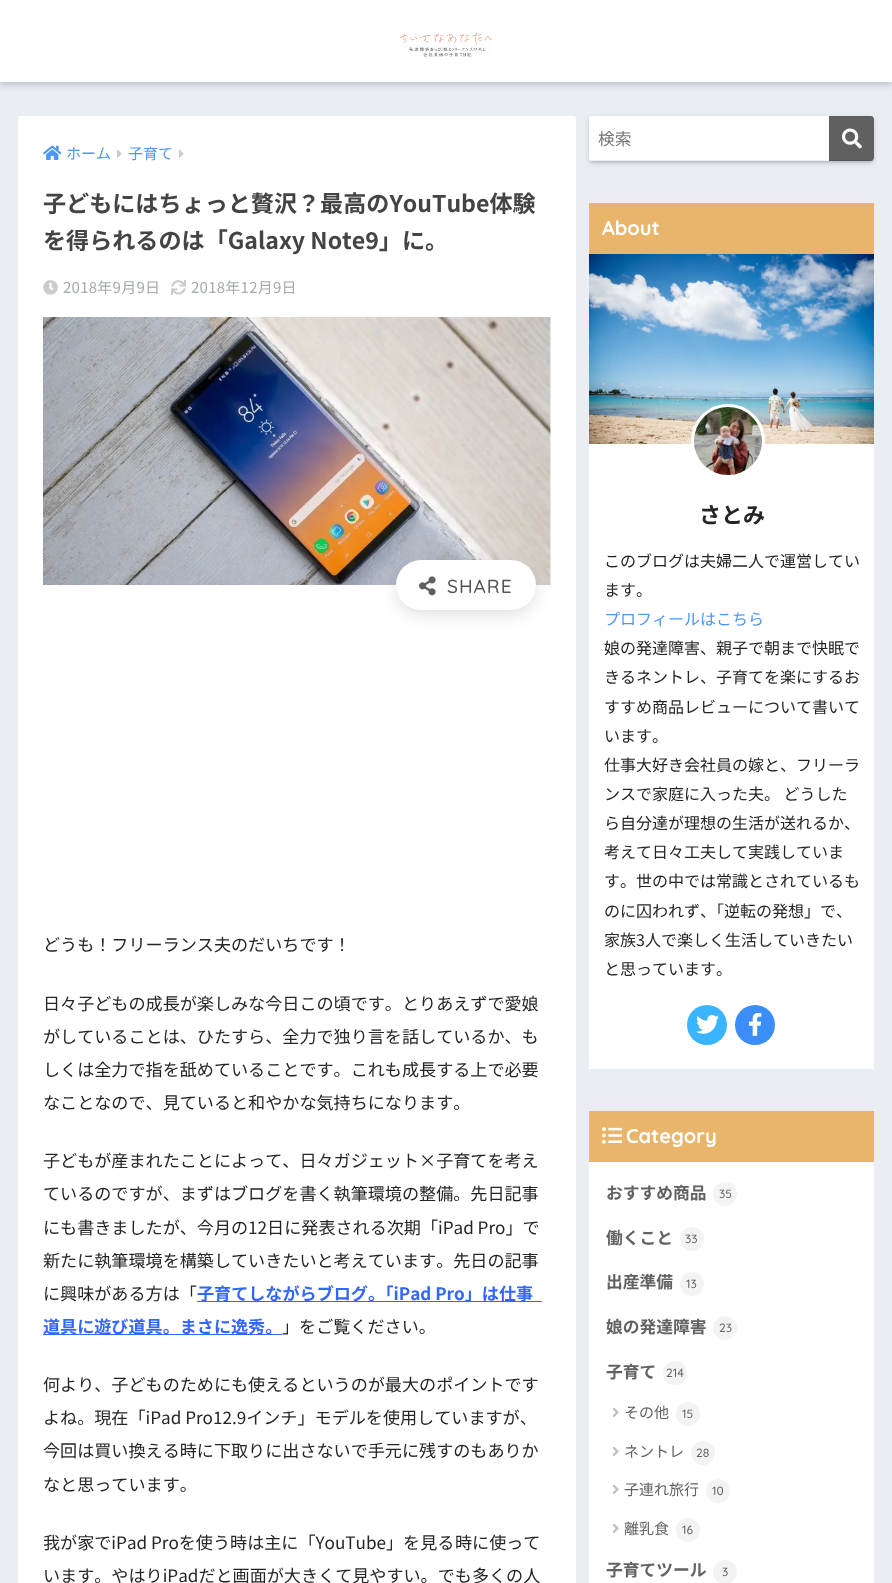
<?xml version="1.0" encoding="UTF-8"?>
<svg xmlns="http://www.w3.org/2000/svg" width="892" height="1583">
    <style>*{font-kerning:none!important;font-variant-ligatures:none!important}</style>
    <defs>
        <filter id="blur1" x="-50%" y="-200%" width="200%" height="500%"><feGaussianBlur stdDeviation="3"/></filter>
        <filter id="blur2" x="-50%" y="-200%" width="200%" height="500%"><feGaussianBlur stdDeviation="9"/></filter>
        <filter id="blur3" x="-50%" y="-200%" width="200%" height="500%"><feGaussianBlur stdDeviation="1.5"/></filter>
        <filter id="blur4" x="-50%" y="-200%" width="200%" height="500%"><feGaussianBlur stdDeviation="2.5"/></filter>
    </defs>
    <rect width="100%" height="100%" fill="#EAEDF2"/>
    <rect x="0" y="3" width="892" height="82" fill="#000000" fill-opacity="0.18" filter="url(#blur1)"/>
    <rect x="0" y="0" width="892" height="82" fill="#FFFFFF"/>
    <image x="400" y="32" width="92" height="25" href="img_01.png"/>
    <rect x="18" y="116" width="558" height="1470" rx="3" fill="#FFFFFF"/>
    <image x="43" y="145" width="19" height="15" href="img_02.png"/>
    <text x="66" y="159" font-family="Noto Sans JP" font-size="15" fill="#4F96F6">ホーム</text>
    <image x="117" y="149" width="5" height="9" href="img_03.png"/>
    <text x="128" y="159" font-family="Noto Sans JP" font-size="15" fill="#4F96F6">子育て</text>
    <image x="179" y="149" width="5" height="9" href="img_03.png"/>
    <text font-family="Noto Sans JP" font-size="23.1" font-weight="700" fill="#444444">
        <tspan x="43" y="212">子どもにはちょっと贅沢？最高のYouTube体験</tspan>
        <tspan x="43" y="249">を得られるのは「Galaxy Note9」に。</tspan>
    </text>
    <image x="43" y="280" width="15" height="15" href="img_04.png"/>
    <text x="63" y="293" font-family="Noto Sans JP" font-size="15" letter-spacing="0.25" fill="#A5AAAF">2018年9月9日</text>
    <image x="171" y="279" width="15" height="16" href="img_05.png"/>
    <text x="191" y="293" font-family="Noto Sans JP" font-size="15" letter-spacing="0.25" fill="#A5AAAF">2018年12月9日</text>
    <image x="43" y="317" width="508" height="268" href="img_06.png"/>
    <rect x="398" y="567" width="136" height="46" rx="23" fill="#000000" fill-opacity="0.15" filter="url(#blur2)"/>
    <rect x="396" y="560" width="140" height="50" rx="25" fill="#FFFFFF"/>
    <image x="419" y="576" width="17" height="20" href="img_07.png"/>
    <text x="447" y="593" font-family="Quicksand" font-size="19" font-weight="500" letter-spacing="1" fill="#555555">SHARE</text>
    <text x="43" y="951" font-family="Noto Sans JP" font-size="17.1" fill="#252525">どうも！フリーランス夫のだいちです！</text>
    <text font-family="Noto Sans JP" font-size="17.1" fill="#252525">
        <tspan x="43" y="1010">日々子どもの成長が楽しみな今日この頃です。とりあえずで愛娘</tspan>
        <tspan x="43" y="1043">がしていることは、ひたすら、全力で独り言を話しているか、も</tspan>
        <tspan x="43" y="1076">しくは全力で指を舐めていることです。これも成長する上で必要</tspan>
        <tspan x="43" y="1109">なことなので、見ていると和やかな気持ちになります。</tspan>
    </text>
    <text font-family="Noto Sans JP" font-size="17.1" fill="#252525">
        <tspan x="43" y="1167">子どもが産まれたことによって、日々ガジェット×子育てを考え</tspan>
        <tspan x="43" y="1200">ているのですが、まずはブログを書く執筆環境の整備。先日記事</tspan>
        <tspan x="43" y="1234">にも書きましたが、今月の12日に発表される次期「iPad Pro」で</tspan>
        <tspan x="43" y="1267">新たに執筆環境を構築していきたいと考えています。先日の記事</tspan>
        <tspan x="43" y="1300">に興味がある方は「</tspan>
    </text>
    <rect x="197" y="1301" width="345" height="1" fill="#3366FF"/>
    <text x="197" y="1300" font-family="Noto Sans JP" font-size="17.1" font-weight="700" fill="#3366FF">子育てしながらブログ。「iPad Pro」は仕事</text>
    <rect x="43" y="1334" width="239" height="1" fill="#3366FF"/>
    <text x="43" y="1333" font-family="Noto Sans JP" font-size="17.1" font-weight="700" fill="#3366FF">道具に遊び道具。まさに逸秀。</text>
    <text x="282" y="1333" font-family="Noto Sans JP" font-size="17.1" fill="#252525">」をご覧ください。</text>
    <text font-family="Noto Sans JP" font-size="17.1" fill="#252525">
        <tspan x="43" y="1391">何より、子どものためにも使えるというのが最大のポイントです</tspan>
        <tspan x="43" y="1424">よね。現在「iPad Pro12.9インチ」モデルを使用していますが、</tspan>
        <tspan x="43" y="1457">今回は買い換える時に下取りに出さないで手元に残すのもありか</tspan>
        <tspan x="43" y="1491">なと思っています。</tspan>
    </text>
    <text x="43" y="1549" font-family="Noto Sans JP" font-size="17.1" fill="#252525">我が家でiPad Proを使う時は主に「YouTube」を見る</text>
    <text x="455" y="1549" font-family="Noto Sans JP" font-size="17.1" fill="#252525">時に使って</text>
    <text x="43" y="1582" font-family="Noto Sans JP" font-size="17.1" fill="#252525">います。やはりiPadだと画面が大きくて見やすい。でも多くの人</text>
    <rect x="591" y="121" width="281" height="41" rx="1" fill="#000000" fill-opacity="0.15" filter="url(#blur3)"/>
    <rect x="589" y="118" width="285" height="45" rx="3" fill="#000000" fill-opacity="0.15" filter="url(#blur4)"/>
    <rect x="589" y="116" width="285" height="45" rx="3" fill="#FFFFFF"/>
    <rect x="591" y="160" width="282" height="1" fill="#EFEFEF"/>
    <text x="598" y="145" font-family="Noto Sans JP" font-size="16.75" fill="#757575">検索</text>
    <path d="M 829 116 H 871 C 872.5 116 874 117.5 874 119 V 158 C 874 159.5 872.5 161 871 161 H 829 Z" fill="#606060"/>
    <rect x="829" y="160" width="44" height="1" fill="#000000" fill-opacity="0.1"/>
    <image x="842" y="128" width="20" height="21" href="img_08.png"/>
    <rect x="589" y="444" width="285" height="625" fill="#FFFFFF"/>
    <rect x="589" y="203" width="285" height="51" fill="#E8B56A"/>
    <text x="602" y="235" font-family="Quicksand" font-size="20" font-weight="700" fill="#FFFFFF">About</text>
    <image x="589" y="254" width="285" height="190" href="img_09.png"/>
    <circle cx="728" cy="441" r="35.5" fill="none" stroke="#FFFFFF" stroke-width="3"/>
    <image x="694" y="407" width="68" height="68" href="img_10.png"/>
    <text x="699" y="523" font-family="Noto Sans JP" font-size="22" font-weight="700" fill="#252525">さとみ</text>
    <text font-family="Noto Sans JP" font-size="16" fill="#252525">
        <tspan x="604" y="567">このブログは夫婦二人で運営してい</tspan>
        <tspan x="604" y="596">ます。</tspan>
    </text>
    <text x="604" y="625" font-family="Noto Sans JP" font-size="16" fill="#4F96F6">プロフィールはこちら</text>
    <text font-family="Noto Sans JP" font-size="16" fill="#252525">
        <tspan x="604" y="654">娘の発達障害、親子で朝まで快眠で</tspan>
        <tspan x="604" y="683">きるネントレ、子育てを楽にするお</tspan>
        <tspan x="604" y="713">すすめ商品レビューについて書いて</tspan>
        <tspan x="604" y="742">います。</tspan>
        <tspan x="604" y="771">仕事大好き会社員の嫁と、フリーラ</tspan>
        <tspan x="604" y="800">ンスで家庭に入った夫。 どうした</tspan>
        <tspan x="604" y="829">ら自分達が理想の生活が送れるか、</tspan>
        <tspan x="604" y="858">考えて日々工夫して実践していま</tspan>
        <tspan x="604" y="887">す。世の中では常識とされているも</tspan>
        <tspan x="604" y="917">のに囚われず、「逆転の発想」で、</tspan>
        <tspan x="604" y="946">家族3人で楽しく生活していきたい</tspan>
        <tspan x="604" y="975">と思っています。</tspan>
    </text>
    <circle cx="707" cy="1025" r="20" fill="#3AB4FF"/>
    <image x="696" y="1015" width="23" height="19" href="img_11.png"/>
    <circle cx="755" cy="1025" r="20" fill="#3B8DF7"/>
    <image x="749" y="1012" width="13" height="24" href="img_12.png"/>
    <rect x="589" y="1162" width="285" height="421" fill="#FFFFFF"/>
    <rect x="589" y="1111" width="285" height="51" fill="#E8B56A"/>
    <image x="602" y="1127" width="21" height="17" href="img_13.png"/>
    <text x="626" y="1143" font-family="Quicksand" font-size="20" font-weight="700" fill="#FFFFFF">Category</text>
    <text x="606" y="1199" font-family="Noto Sans JP" font-size="16.75" font-weight="700" fill="#626262">おすすめ商品</text>
    <circle cx="725" cy="1194" r="12" fill="#F3F3F3"/>
    <text x="719" y="1198" font-family="Quicksand" font-size="12" font-weight="500" fill="#626262">35</text>
    <text x="606" y="1244" font-family="Noto Sans JP" font-size="16.75" font-weight="700" fill="#626262">働くこと</text>
    <circle cx="692" cy="1239" r="12" fill="#F3F3F3"/>
    <text x="685" y="1243" font-family="Quicksand" font-size="12" font-weight="500" fill="#626262">33</text>
    <text x="606" y="1288" font-family="Noto Sans JP" font-size="16.75" font-weight="700" fill="#626262">出産準備</text>
    <circle cx="692" cy="1284" r="12" fill="#F3F3F3"/>
    <text x="686" y="1288" font-family="Quicksand" font-size="12" font-weight="500" fill="#626262">13</text>
    <text x="606" y="1333" font-family="Noto Sans JP" font-size="16.75" font-weight="700" fill="#626262">娘の発達障害</text>
    <circle cx="725" cy="1328" r="12" fill="#F3F3F3"/>
    <text x="719" y="1332" font-family="Quicksand" font-size="12" font-weight="500" fill="#626262">23</text>
    <text x="606" y="1378" font-family="Noto Sans JP" font-size="16.75" font-weight="700" fill="#626262">子育て</text>
    <circle cx="675" cy="1373" r="12" fill="#F3F3F3"/>
    <text x="666" y="1377" font-family="Quicksand" font-size="12" font-weight="500" fill="#626262">214</text>
    <image x="612" y="1407" width="7" height="10" href="img_14.png"/>
    <text x="624" y="1418" font-family="Noto Sans JP" font-size="15" fill="#626262">その他</text>
    <circle cx="688" cy="1414" r="12" fill="#F3F3F3"/>
    <text x="682" y="1418" font-family="Quicksand" font-size="12" font-weight="500" fill="#626262">15</text>
    <image x="612" y="1446" width="7" height="10" href="img_14.png"/>
    <text x="624" y="1457" font-family="Noto Sans JP" font-size="15" fill="#626262">ネントレ</text>
    <circle cx="703" cy="1453" r="12" fill="#F3F3F3"/>
    <text x="696" y="1457" font-family="Quicksand" font-size="12" font-weight="500" fill="#626262">28</text>
    <image x="612" y="1484" width="7" height="10" href="img_14.png"/>
    <text x="624" y="1495" font-family="Noto Sans JP" font-size="15" fill="#626262">子連れ旅行</text>
    <circle cx="718" cy="1491" r="12" fill="#F3F3F3"/>
    <text x="712" y="1495" font-family="Quicksand" font-size="12" font-weight="500" fill="#626262">10</text>
    <image x="612" y="1523" width="7" height="10" href="img_14.png"/>
    <text x="624" y="1534" font-family="Noto Sans JP" font-size="15" fill="#626262">離乳食</text>
    <circle cx="688" cy="1530" r="12" fill="#F3F3F3"/>
    <text x="682" y="1534" font-family="Quicksand" font-size="12" font-weight="500" fill="#626262">16</text>
    <text x="606" y="1576" font-family="Noto Sans JP" font-size="16.75" font-weight="700" fill="#626262">子育てツール</text>
    <circle cx="725" cy="1572" r="12" fill="#F3F3F3"/>
    <text x="722" y="1576" font-family="Quicksand" font-size="12" font-weight="500" fill="#626262">3</text>
</svg>
